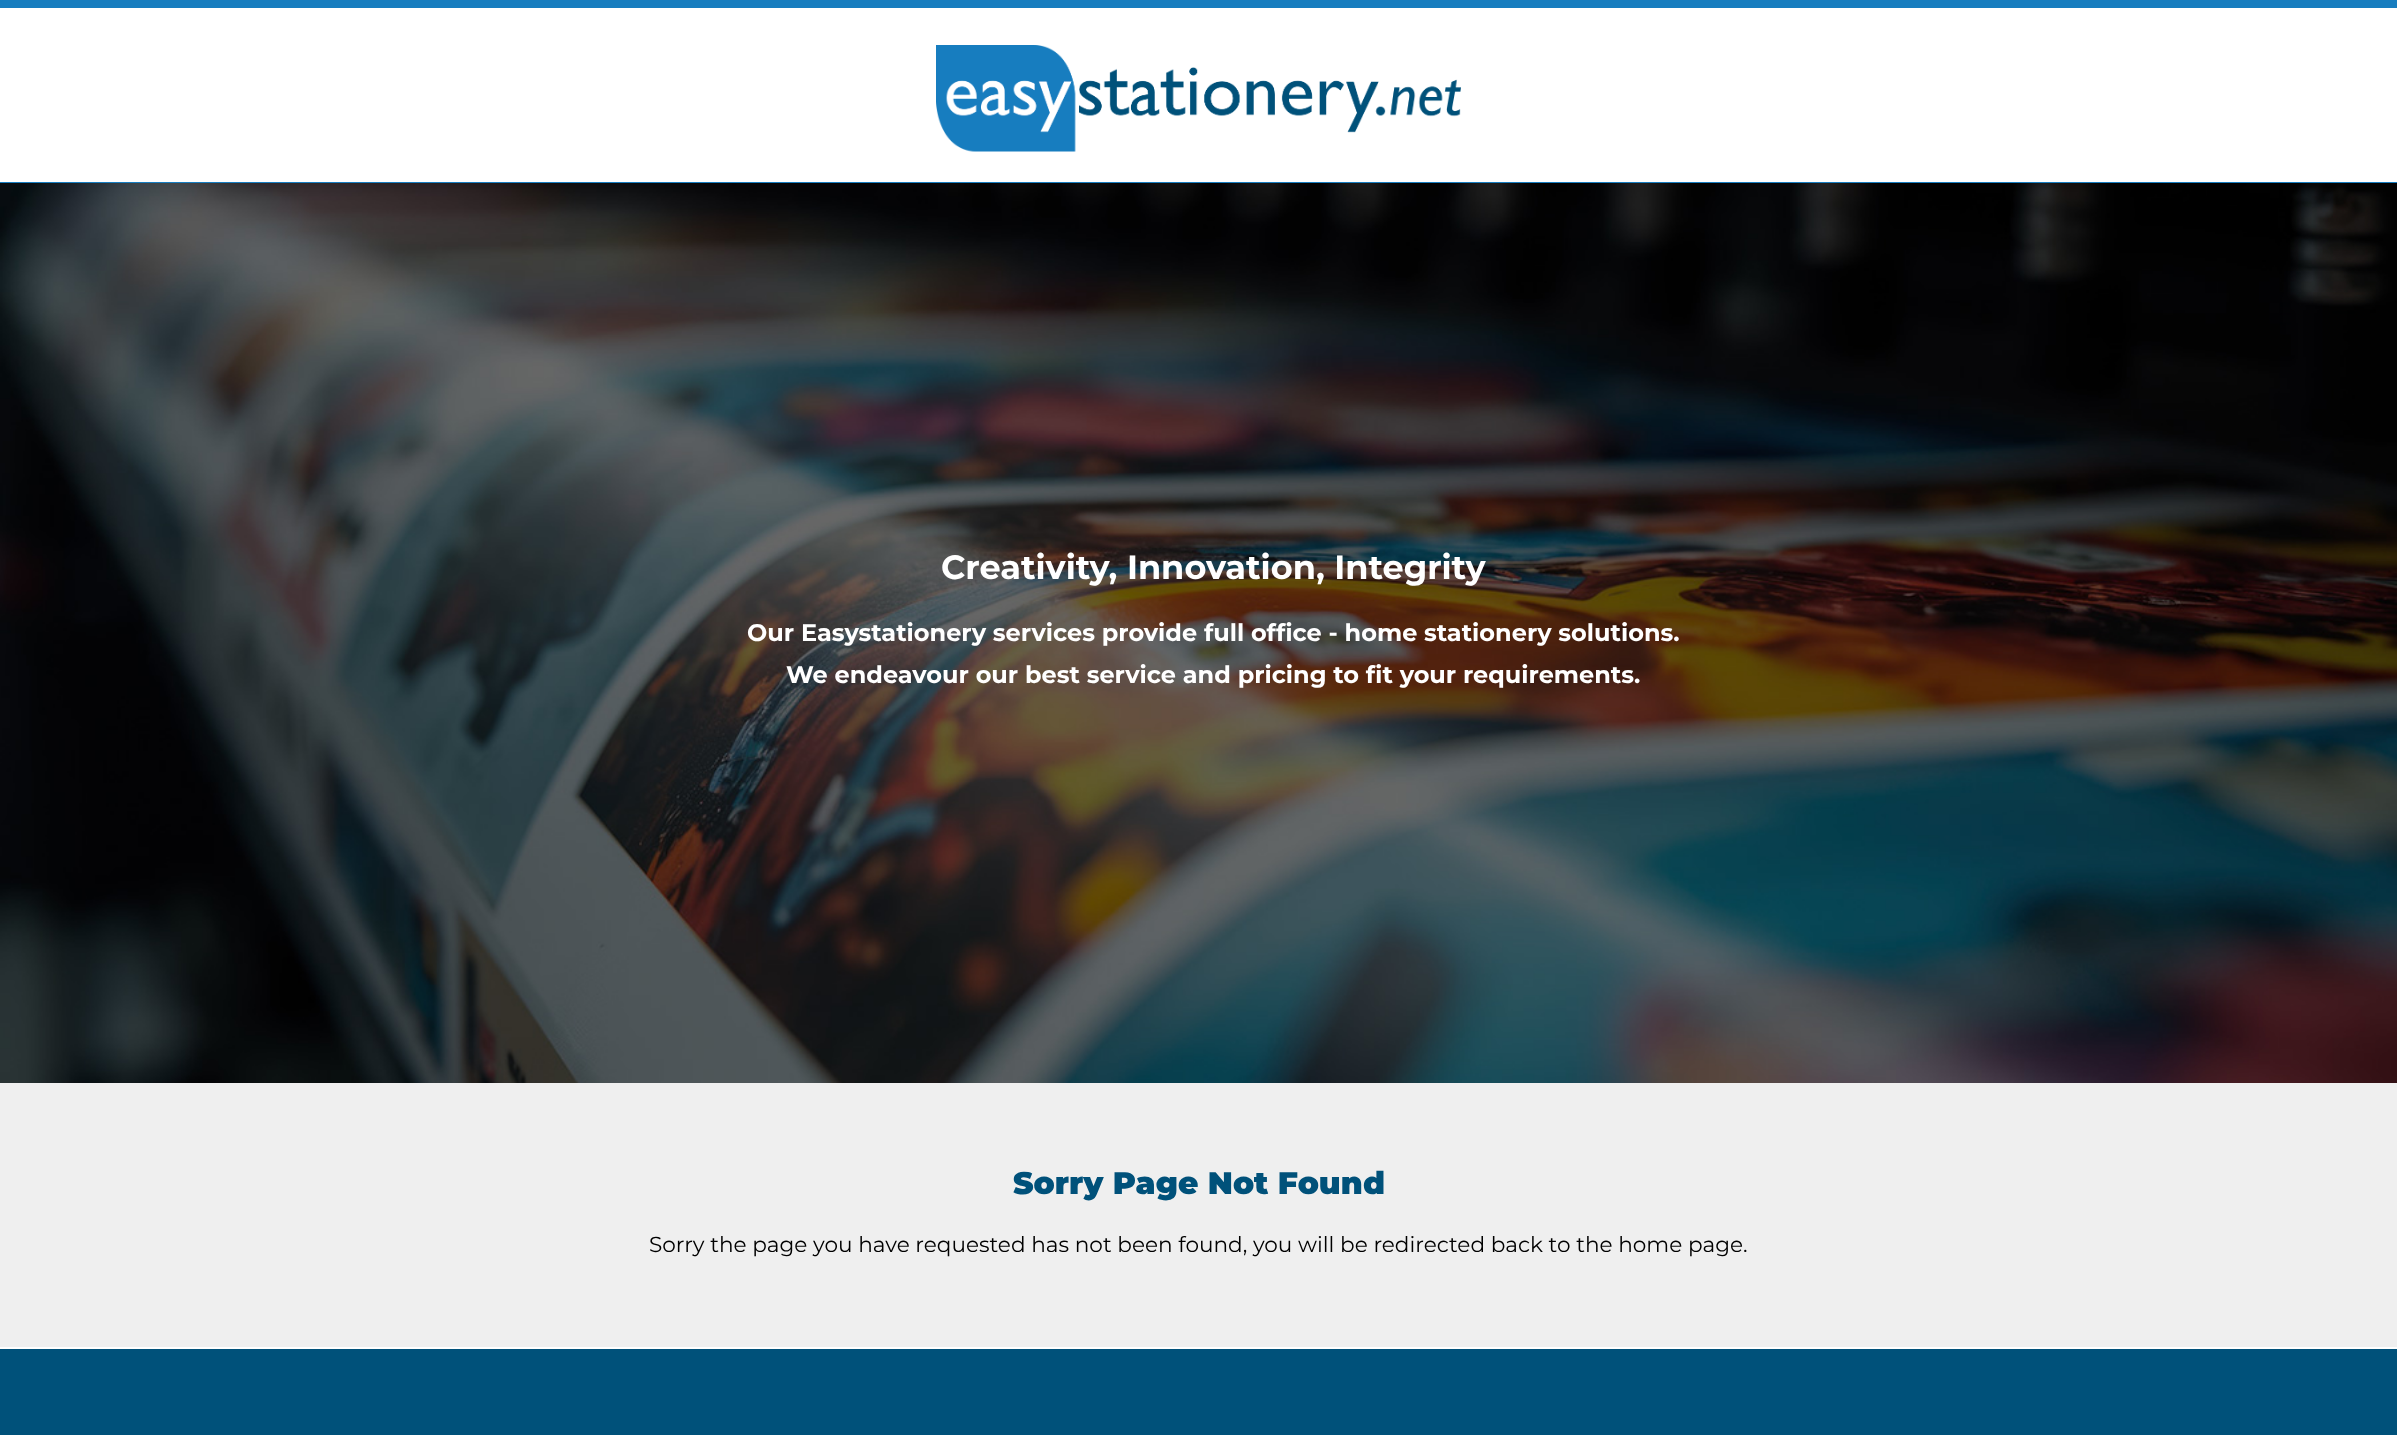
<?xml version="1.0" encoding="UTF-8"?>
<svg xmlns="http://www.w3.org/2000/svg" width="2397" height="1435">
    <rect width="100%" height="100%" fill="#FFFFFF"/>
    <rect x="0" y="0" width="2397" height="8" fill="#177DBF"/>
    <rect x="0" y="182" width="2397" height="1" fill="#177DBF"/>
    <image x="936" y="45" width="525" height="107" href="img_01.png"/>
    <image x="0" y="183" width="2397" height="900" href="img_02.png"/>
    <text x="941" y="579" font-family="Montserrat" font-size="33.6" font-weight="700" fill="#FFFFFF">Creativity, Innovation, Integrity</text>
    <text x="747" y="641" font-family="Montserrat" font-size="24" font-weight="700" fill="#FFFFFF">Our Easystationery services provide full office - home stationery solutions.</text>
    <text x="786" y="683" font-family="Montserrat" font-size="24" font-weight="700" fill="#FFFFFF">We endeavour our best service and pricing to fit your requirements.</text>
    <rect x="0" y="1083" width="2397" height="264" fill="#EFEFEF"/>
    <text x="1013" y="1194" font-family="Montserrat" font-size="31.25" font-weight="900" fill="#00517A">Sorry Page Not Found</text>
    <text x="649" y="1252" font-family="Montserrat" font-size="21.6" fill="#000000">Sorry the page you have requested has not been found, you will be redirected back to the home page.</text>
    <rect x="0" y="1349" width="2397" height="86" fill="#00517A"/>
</svg>
